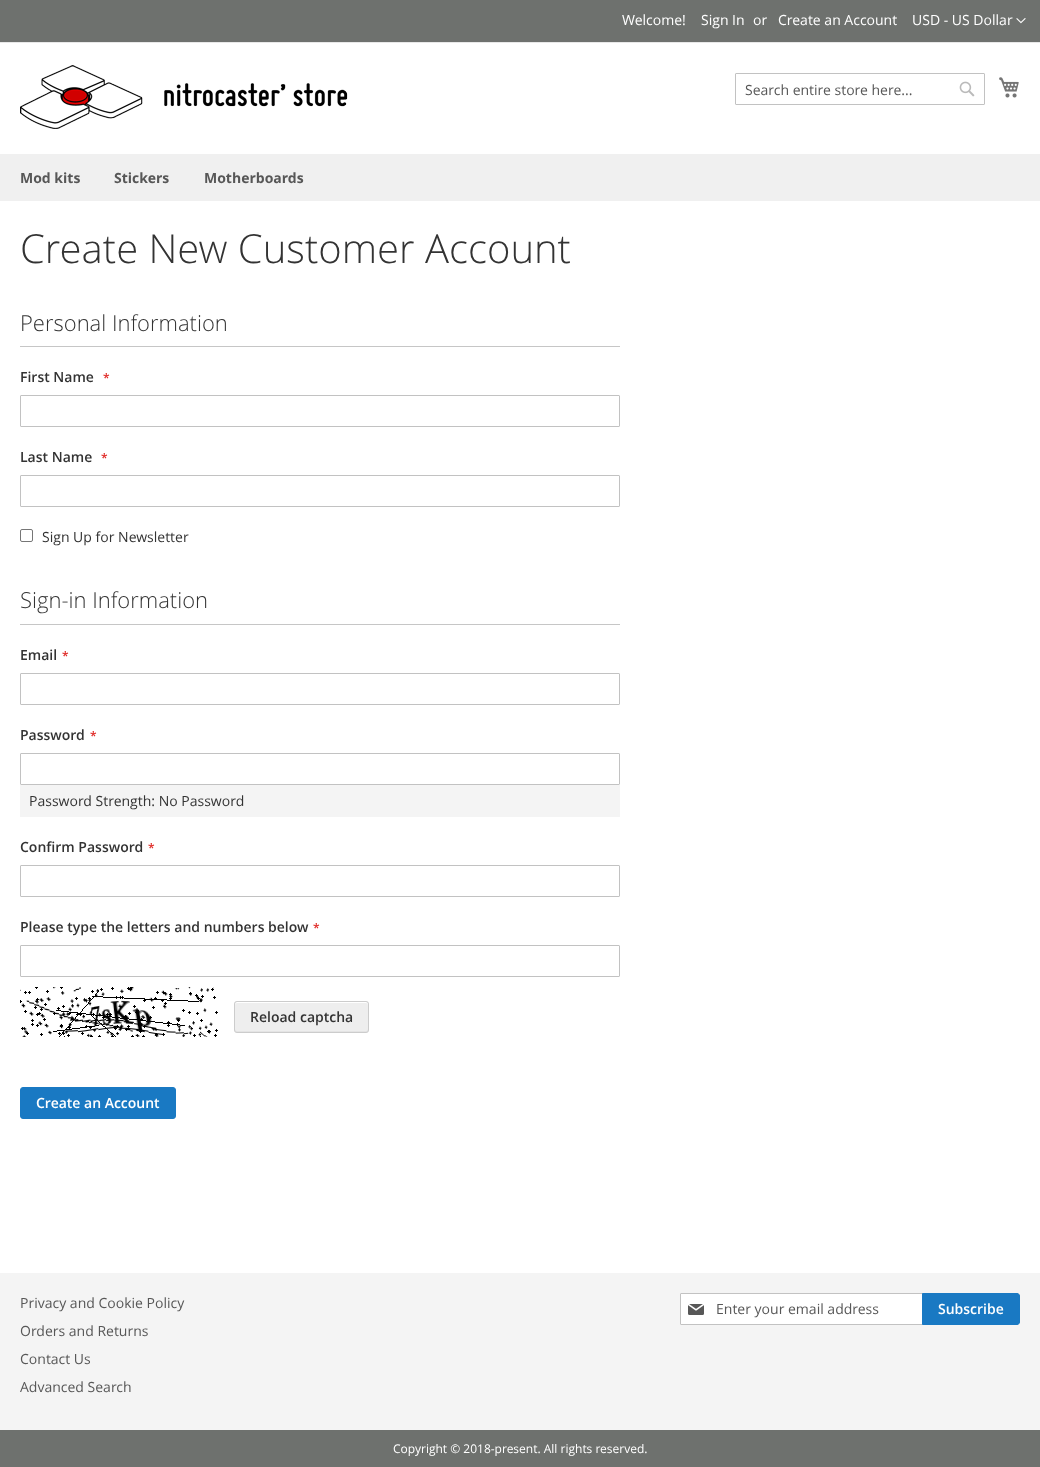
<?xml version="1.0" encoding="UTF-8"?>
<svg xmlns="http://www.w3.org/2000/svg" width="1040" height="1467">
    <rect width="100%" height="100%" fill="#FFFFFF"/>
    <rect x="0" y="0" width="1040" height="42" fill="#6E716E"/>
    <rect x="0" y="42" width="1040" height="1" fill="#E8E8E8"/>
    <text x="622" y="25" font-family="Open Sans" font-size="14" fill="#FFFFFF">Welcome!</text>
    <text x="701" y="25" font-family="Open Sans" font-size="14" fill="#FFFFFF">Sign In</text>
    <text x="753" y="25" font-family="Open Sans" font-size="14" fill="#FFFFFF">or</text>
    <text x="778" y="25" font-family="Open Sans" font-size="14" fill="#FFFFFF">Create an Account</text>
    <text x="912" y="25" font-family="Open Sans" font-size="14" fill="#FFFFFF">USD - US Dollar</text>
    <image x="1016" y="18" width="10" height="6" href="img_01.png"/>
    <image x="20" y="65" width="328" height="64" href="img_02.png"/>
    <rect x="735.5" y="73.5" width="249" height="31" rx="0.5" fill="none" stroke="#C2C2C2"/>
    <text x="745" y="95" font-family="Open Sans" font-size="14" fill="#575757">Search entire store here...</text>
    <image x="959" y="81" width="16" height="16" href="img_03.png"/>
    <image x="999" y="77" width="20" height="21" href="img_04.png"/>
    <rect x="0" y="154" width="1040" height="47" fill="#F0F0F0"/>
    <text x="20" y="183" font-family="Open Sans" font-size="14" font-weight="700" fill="#575757">Mod kits</text>
    <text x="114" y="183" font-family="Open Sans" font-size="14" font-weight="700" fill="#575757">Stickers</text>
    <text x="204" y="183" font-family="Open Sans" font-size="14" font-weight="700" fill="#575757">Motherboards</text>
    <text x="20" y="263" font-family="Open Sans" font-size="40" font-weight="300" fill="#333333">Create New Customer Account</text>
    <rect x="20" y="346" width="600" height="1" fill="#C6C6C6"/>
    <text x="20" y="331" font-family="Open Sans" font-size="22" font-weight="300" fill="#333333">Personal Information</text>
    <text x="20" y="382" font-family="Open Sans" font-size="14" font-weight="600" fill="#333333">First Name</text>
    <text x="103" y="382" font-family="Open Sans" font-size="12" font-weight="600" fill="#E02B27">*</text>
    <rect x="20.5" y="395.5" width="599" height="31" rx="0.5" fill="none" stroke="#C2C2C2"/>
    <text x="20" y="462" font-family="Open Sans" font-size="14" font-weight="600" fill="#333333">Last Name</text>
    <text x="101" y="462" font-family="Open Sans" font-size="12" font-weight="600" fill="#E02B27">*</text>
    <rect x="20.5" y="475.5" width="599" height="31" rx="0.5" fill="none" stroke="#C2C2C2"/>
    <rect x="20.5" y="529.5" width="12" height="12" rx="1.5" fill="none" stroke="#767676"/>
    <text x="42" y="542" font-family="Open Sans" font-size="14" fill="#333333">Sign Up for Newsletter</text>
    <rect x="20" y="624" width="600" height="1" fill="#C6C6C6"/>
    <text x="20" y="608" font-family="Open Sans" font-size="22" font-weight="300" fill="#333333">Sign-in Information</text>
    <text x="20" y="660" font-family="Open Sans" font-size="14" font-weight="600" fill="#333333">Email</text>
    <text x="62" y="660" font-family="Open Sans" font-size="12" font-weight="600" fill="#E02B27">*</text>
    <rect x="20.5" y="673.5" width="599" height="31" rx="0.5" fill="none" stroke="#C2C2C2"/>
    <text x="20" y="740" font-family="Open Sans" font-size="14" font-weight="600" fill="#333333">Password</text>
    <text x="90" y="740" font-family="Open Sans" font-size="12" font-weight="600" fill="#E02B27">*</text>
    <rect x="20.5" y="753.5" width="599" height="31" rx="0.5" fill="none" stroke="#C2C2C2"/>
    <rect x="20" y="785" width="600" height="32" fill="#F4F4F4"/>
    <text x="29" y="806" font-family="Open Sans" font-size="14" fill="#333333">Password Strength: No Password</text>
    <text x="20" y="852" font-family="Open Sans" font-size="14" font-weight="600" fill="#333333">Confirm Password</text>
    <text x="148" y="852" font-family="Open Sans" font-size="12" font-weight="600" fill="#E02B27">*</text>
    <rect x="20.5" y="865.5" width="599" height="31" rx="0.5" fill="none" stroke="#C2C2C2"/>
    <text x="20" y="932" font-family="Open Sans" font-size="14" font-weight="600" fill="#333333">Please type the letters and numbers below</text>
    <text x="313" y="932" font-family="Open Sans" font-size="12" font-weight="600" fill="#E02B27">*</text>
    <rect x="20.5" y="945.5" width="599" height="31" rx="0.5" fill="none" stroke="#C2C2C2"/>
    <image x="20" y="987" width="198" height="50" href="img_05.png"/>
    <rect x="234" y="1001" width="135" height="32" rx="3" fill="#EEEEEE"/>
    <path d="M 235 1029 C 235 1030 235 1032 237 1032 H 366 C 368 1032 368 1030 368 1029 C 368 1030 367 1031 366 1031 H 237 C 236 1031 235 1030 235 1029 Z" fill="#E4E4E4"/>
    <path d="M 237 1003 H 366 C 367 1003 368 1004 368 1005 C 368 1004 368 1002 366 1002 H 237 C 235 1002 235 1004 235 1005 C 235 1004 236 1003 237 1003 Z" fill="#FFFFFF"/>
    <rect x="234.5" y="1001.5" width="134" height="31" rx="2.5" fill="none" stroke="#CCCCCC"/>
    <text x="250" y="1022" font-family="Open Sans" font-size="14" font-weight="600" fill="#333333">Reload captcha</text>
    <rect x="20.5" y="1087.5" width="155" height="31" rx="2.5" fill="#1979C3" stroke="#1979C3"/>
    <text x="36" y="1108" font-family="Open Sans" font-size="14" font-weight="600" fill="#FFFFFF">Create an Account</text>
    <rect x="0" y="1273" width="1040" height="157" fill="#F4F4F4"/>
    <text x="20" y="1308" font-family="Open Sans" font-size="14" fill="#575757">Privacy and Cookie Policy</text>
    <text x="20" y="1336" font-family="Open Sans" font-size="14" fill="#575757">Orders and Returns</text>
    <text x="20" y="1364" font-family="Open Sans" font-size="14" fill="#575757">Contact Us</text>
    <text x="20" y="1392" font-family="Open Sans" font-size="14" fill="#575757">Advanced Search</text>
    <rect x="680.5" y="1293.5" width="242" height="31" rx="0.5" fill="#FFFFFF" stroke="#C2C2C2"/>
    <image x="688" y="1304" width="16" height="11" href="img_06.png"/>
    <text x="716" y="1314" font-family="Open Sans" font-size="14" fill="#575757">Enter your email address</text>
    <path d="M 922.5 1293.5 H 1017 C 1018.5 1293.5 1019.5 1294.5 1019.5 1296 V 1322 C 1019.5 1323.5 1018.5 1324.5 1017 1324.5 H 922.5 Z" fill="#1979C3" stroke="#1979C3"/>
    <text x="938" y="1314" font-family="Open Sans" font-size="14" font-weight="600" fill="#FFFFFF">Subscribe</text>
    <rect x="0" y="1430" width="1040" height="37" fill="#6E716E"/>
    <text x="393" y="1453" font-family="Open Sans" font-size="12" fill="#FFFFFF">Copyright © 2018-present. All rights reserved.</text>
</svg>
